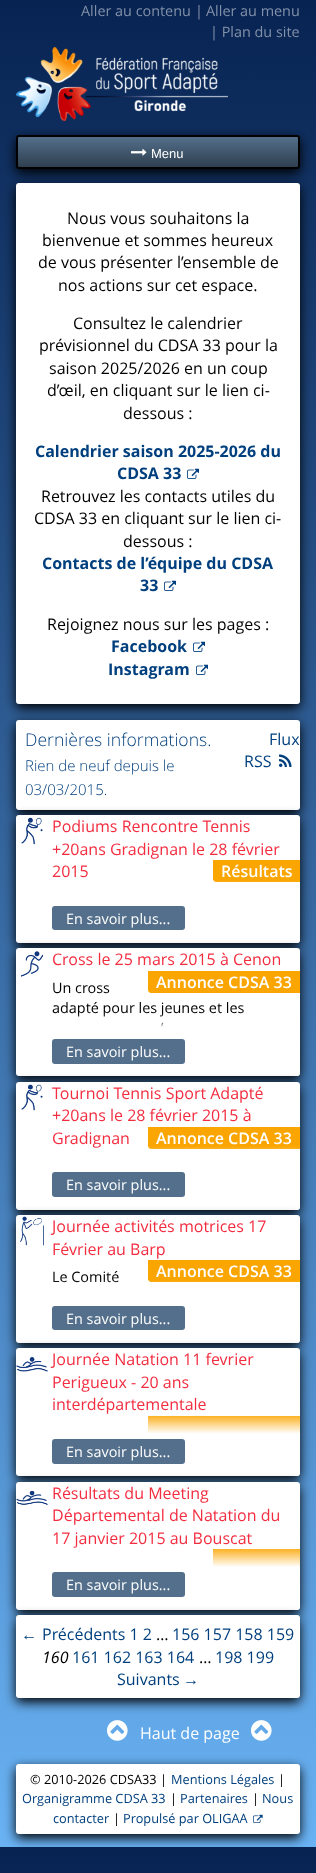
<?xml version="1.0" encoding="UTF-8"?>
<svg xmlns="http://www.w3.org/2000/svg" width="316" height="1873">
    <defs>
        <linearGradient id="g1" gradientUnits="userSpaceOnUse" x1="158" y1="0" x2="158" y2="1847"><stop offset="0" stop-color="#072352"/><stop offset="1" stop-color="#69B2F4"/></linearGradient>
        <linearGradient id="g2" gradientUnits="userSpaceOnUse" x1="158" y1="1847" x2="158" y2="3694"><stop offset="0" stop-color="#072352"/><stop offset="1" stop-color="#69B2F4"/></linearGradient>
        <filter id="blur1" x="-50%" y="-200%" width="200%" height="500%"><feGaussianBlur stdDeviation="6"/></filter>
        <clipPath id="clip1"><rect x="16" y="135" width="284" height="34" rx="3"/></clipPath>
        <linearGradient id="g3" gradientUnits="userSpaceOnUse" x1="158" y1="137" x2="158" y2="167"><stop offset="0" stop-color="#536F8B"/><stop offset="1" stop-color="#2F3F4F"/></linearGradient>
        <linearGradient id="g4" gradientUnits="userSpaceOnUse" x1="176" y1="880" x2="176" y2="943"><stop offset="0" stop-color="#FFFFFF" stop-opacity="0"/><stop offset="0.33" stop-color="#FFFFFF"/></linearGradient>
        <linearGradient id="g5" gradientUnits="userSpaceOnUse" x1="176" y1="1013" x2="176" y2="1076"><stop offset="0" stop-color="#FFFFFF" stop-opacity="0"/><stop offset="0.33" stop-color="#FFFFFF"/></linearGradient>
        <linearGradient id="g6" gradientUnits="userSpaceOnUse" x1="176" y1="1146" x2="176" y2="1210"><stop offset="0" stop-color="#FFFFFF" stop-opacity="0"/><stop offset="0.33" stop-color="#FFFFFF"/></linearGradient>
        <linearGradient id="g7" gradientUnits="userSpaceOnUse" x1="176" y1="1280" x2="176" y2="1343"><stop offset="0" stop-color="#FFFFFF" stop-opacity="0"/><stop offset="0.33" stop-color="#FFFFFF"/></linearGradient>
        <linearGradient id="g8" gradientUnits="userSpaceOnUse" x1="176" y1="1413" x2="176" y2="1476"><stop offset="0" stop-color="#FFFFFF" stop-opacity="0"/><stop offset="0.33" stop-color="#FFFFFF"/></linearGradient>
        <linearGradient id="g9" gradientUnits="userSpaceOnUse" x1="176" y1="1546" x2="176" y2="1610"><stop offset="0" stop-color="#FFFFFF" stop-opacity="0"/><stop offset="0.33" stop-color="#FFFFFF"/></linearGradient>
        <clipPath id="clip2"><rect x="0" y="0" width="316" height="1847"/></clipPath>
    </defs>
    <rect width="100%" height="100%" fill="#FFFFFF"/>
    <rect x="0" y="0" width="316" height="1847" fill="url(#g1)"/>
    <rect x="0" y="1847" width="316" height="26" fill="url(#g2)"/>
    <text x="81" y="16" font-family="Open Sans" font-size="14.4" fill="#8391A9">Aller au contenu</text>
    <text x="195" y="16" font-family="Open Sans" font-size="14.4" fill="#8391A9">|</text>
    <text x="206" y="16" font-family="Open Sans" font-size="14.4" fill="#8391A9">Aller au menu</text>
    <text x="210" y="37" font-family="Open Sans" font-size="14.4" fill="#8391A9">| Plan du site</text>
    <image x="16" y="47" width="212" height="74" href="img_01.png"/>
    <rect x="16" y="139" width="284" height="34" rx="3" fill="#000000" filter="url(#blur1)"/>
    <g clip-path="url(#clip1)">
        <rect x="16" y="137" width="284" height="30" fill="url(#g3)"/>
    </g>
    <rect x="17" y="136" width="282" height="32" rx="2" fill="none" stroke="#000000" stroke-width="2"/>
    <image x="131" y="148" width="16" height="8" href="img_02.png"/>
    <text x="151" y="158" font-family="Liberation Sans" font-size="13" fill="#FFFFFF">Menu</text>
    <rect x="16" y="187" width="284" height="521" rx="3" fill="#000000" filter="url(#blur1)"/>
    <rect x="16" y="183" width="284" height="521" rx="3" fill="#FFFFFF"/>
    <text x="67" y="224" font-family="Open Sans" font-size="16" fill="#000000">Nous vous souhaitons la</text>
    <text x="42" y="246" font-family="Open Sans" font-size="16" fill="#000000">bienvenue et sommes heureux</text>
    <text x="38" y="268" font-family="Open Sans" font-size="16" fill="#000000">de vous présenter l’ensemble de</text>
    <text x="58" y="291" font-family="Open Sans" font-size="16" fill="#000000">nos actions sur cet espace.</text>
    <text x="73" y="329" font-family="Open Sans" font-size="16" fill="#000000">Consultez le calendrier</text>
    <text x="39" y="351" font-family="Open Sans" font-size="16" fill="#000000">prévisionnel du CDSA 33 pour la</text>
    <text x="49" y="374" font-family="Open Sans" font-size="16" fill="#000000">saison 2025/2026 en un coup</text>
    <text x="47" y="396" font-family="Open Sans" font-size="16" fill="#000000">d’œil, en cliquant sur le lien ci-</text>
    <text x="123" y="419" font-family="Open Sans" font-size="16" fill="#000000">dessous :</text>
    <text x="35" y="457" font-family="Open Sans" font-size="16" font-weight="700" fill="#003F7E">Calendrier saison 2025-2026 du</text>
    <text x="117" y="479" font-family="Open Sans" font-size="16" font-weight="700" fill="#003F7E">CDSA 33</text>
    <image x="187" y="468" width="12" height="11" href="img_03.png"/>
    <text x="41" y="502" font-family="Open Sans" font-size="16" fill="#000000">Retrouvez les contacts utiles du</text>
    <text x="34" y="524" font-family="Open Sans" font-size="16" fill="#000000">CDSA 33 en cliquant sur le lien ci-</text>
    <text x="123" y="547" font-family="Open Sans" font-size="16" fill="#000000">dessous :</text>
    <text x="42" y="569" font-family="Open Sans" font-size="16" font-weight="700" fill="#003F7E">Contacts de l’équipe du CDSA</text>
    <text x="140" y="591" font-family="Open Sans" font-size="16" font-weight="700" fill="#003F7E">33</text>
    <image x="164" y="580" width="12" height="11" href="img_03.png"/>
    <text x="47" y="630" font-family="Open Sans" font-size="16" fill="#000000">Rejoignez nous sur les pages :</text>
    <text x="111" y="652" font-family="Open Sans" font-size="16" font-weight="700" fill="#003F7E">Facebook</text>
    <image x="193" y="641" width="12" height="11" href="img_03.png"/>
    <text x="108" y="675" font-family="Open Sans" font-size="16" font-weight="700" fill="#003F7E">Instagram</text>
    <image x="196" y="664" width="12" height="11" href="img_03.png"/>
    <rect x="16" y="724" width="284" height="90" rx="3" fill="#000000" filter="url(#blur1)"/>
    <rect x="16" y="720" width="284" height="90" rx="3" fill="#FFFFFF"/>
    <text x="25" y="746" font-family="Open Sans" font-size="17.6" font-weight="300" fill="#003F7E">Dernières informations.</text>
    <text font-family="Open Sans" font-size="15" font-weight="300" fill="#003F7E">
        <tspan x="25" y="771">Rien de neuf depuis le</tspan>
        <tspan x="25" y="795">03/03/2015.</tspan>
    </text>
    <text x="269" y="745" font-family="Open Sans" font-size="16" fill="#003F7E">Flux</text>
    <text x="244" y="767" font-family="Open Sans" font-size="16" fill="#003F7E">RSS</text>
    <image x="279" y="754" width="13" height="13" href="img_04.png"/>
    <rect x="16" y="819" width="284" height="128" rx="3" fill="#000000" filter="url(#blur1)"/>
    <rect x="16" y="815" width="284" height="128" rx="3" fill="#FFFFFF"/>
    <image x="21" y="817" width="22" height="28" href="img_05.png"/>
    <text font-family="Open Sans" font-size="16" fill="#F32D40">
        <tspan x="52" y="832">Podiums Rencontre Tennis</tspan>
        <tspan x="52" y="855">+20ans Gradignan le 28 février</tspan>
        <tspan x="52" y="877">2015</tspan>
    </text>
    <path d="M 213 860 H 300 V 882 H 216 C 214.5 882 213 880.5 213 879 Z" fill="#FBA500"/>
    <text x="221" y="877" font-family="Open Sans" font-size="16" font-weight="600" fill="#FFFFFF">Résultats</text>
    <path d="M 52 880 H 300 V 940 C 300 941.5 298.5 943 297 943 H 52 Z" fill="url(#g4)"/>
    <rect x="52" y="906" width="133" height="24" rx="3" fill="#536F8B"/>
    <text x="66" y="924" font-family="Open Sans" font-size="14.4" fill="#FFFFFF">En savoir plus...</text>
    <rect x="16" y="952" width="284" height="128" rx="3" fill="#000000" filter="url(#blur1)"/>
    <rect x="16" y="948" width="284" height="128" rx="3" fill="#FFFFFF"/>
    <image x="20" y="951" width="24" height="26" href="img_06.png"/>
    <text x="52" y="965" font-family="Open Sans" font-size="16" fill="#F32D40">Cross le 25 mars 2015 à Cenon</text>
    <path d="M 148 971 H 300 V 993 H 151 C 149.5 993 148 991.5 148 990 Z" fill="#FBA500"/>
    <text x="156" y="988" font-family="Open Sans" font-size="16" font-weight="600" fill="#FFFFFF">Annonce CDSA 33</text>
    <text font-family="Open Sans" font-size="14.4" fill="#000000">
        <tspan x="52" y="993">Un cross</tspan>
        <tspan x="52" y="1013">adapté pour les jeunes et les</tspan>
    </text>
    <text x="161" y="1033" font-family="Open Sans" font-size="14.4" fill="#000000">’</text>
    <path d="M 52 1013 H 300 V 1073 C 300 1074.5 298.5 1076 297 1076 H 52 Z" fill="url(#g5)"/>
    <rect x="52" y="1039" width="133" height="25" rx="3" fill="#536F8B"/>
    <text x="66" y="1057" font-family="Open Sans" font-size="14.4" fill="#FFFFFF">En savoir plus...</text>
    <rect x="16" y="1086" width="284" height="128" rx="3" fill="#000000" filter="url(#blur1)"/>
    <rect x="16" y="1082" width="284" height="128" rx="3" fill="#FFFFFF"/>
    <image x="21" y="1084" width="22" height="27" href="img_07.png"/>
    <text font-family="Open Sans" font-size="16" fill="#F32D40">
        <tspan x="52" y="1099">Tournoi Tennis Sport Adapté</tspan>
        <tspan x="52" y="1121">+20ans le 28 février 2015 à</tspan>
        <tspan x="52" y="1144">Gradignan</tspan>
    </text>
    <path d="M 148 1127 H 300 V 1149 H 151 C 149.5 1149 148 1147.5 148 1146 Z" fill="#FBA500"/>
    <text x="156" y="1144" font-family="Open Sans" font-size="16" font-weight="600" fill="#FFFFFF">Annonce CDSA 33</text>
    <path d="M 52 1146 H 300 V 1207 C 300 1208.5 298.5 1210 297 1210 H 52 Z" fill="url(#g6)"/>
    <rect x="52" y="1172" width="133" height="25" rx="3" fill="#536F8B"/>
    <text x="66" y="1190" font-family="Open Sans" font-size="14.4" fill="#FFFFFF">En savoir plus...</text>
    <rect x="16" y="1219" width="284" height="128" rx="3" fill="#000000" filter="url(#blur1)"/>
    <rect x="16" y="1215" width="284" height="128" rx="3" fill="#FFFFFF"/>
    <image x="20" y="1216" width="24" height="30" href="img_08.png"/>
    <text font-family="Open Sans" font-size="16" fill="#F32D40">
        <tspan x="52" y="1232">Journée activités motrices 17</tspan>
        <tspan x="52" y="1255">Février au Barp</tspan>
    </text>
    <text x="52" y="1282" font-family="Open Sans" font-size="14.4" fill="#000000">Le Comité</text>
    <path d="M 148 1260 H 300 V 1282 H 151 C 149.5 1282 148 1280.5 148 1279 Z" fill="#FBA500"/>
    <text x="156" y="1277" font-family="Open Sans" font-size="16" font-weight="600" fill="#FFFFFF">Annonce CDSA 33</text>
    <path d="M 52 1280 H 300 V 1340 C 300 1341.5 298.5 1343 297 1343 H 52 Z" fill="url(#g7)"/>
    <rect x="52" y="1306" width="133" height="24" rx="3" fill="#536F8B"/>
    <text x="66" y="1324" font-family="Open Sans" font-size="14.4" fill="#FFFFFF">En savoir plus...</text>
    <rect x="16" y="1352" width="284" height="128" rx="3" fill="#000000" filter="url(#blur1)"/>
    <rect x="16" y="1348" width="284" height="128" rx="3" fill="#FFFFFF"/>
    <image x="16" y="1357" width="32" height="15" href="img_09.png"/>
    <text font-family="Open Sans" font-size="16" fill="#F32D40">
        <tspan x="52" y="1365">Journée Natation 11 fevrier</tspan>
        <tspan x="52" y="1388">Perigueux - 20 ans</tspan>
        <tspan x="52" y="1410">interdépartementale</tspan>
    </text>
    <rect x="148" y="1416" width="152" height="18" fill="#FBA500"/>
    <path d="M 52 1413 H 300 V 1473 C 300 1474.5 298.5 1476 297 1476 H 52 Z" fill="url(#g8)"/>
    <rect x="52" y="1439" width="133" height="25" rx="3" fill="#536F8B"/>
    <text x="66" y="1457" font-family="Open Sans" font-size="14.4" fill="#FFFFFF">En savoir plus...</text>
    <rect x="16" y="1486" width="284" height="128" rx="3" fill="#000000" filter="url(#blur1)"/>
    <rect x="16" y="1482" width="284" height="128" rx="3" fill="#FFFFFF"/>
    <image x="16" y="1490" width="32" height="15" href="img_10.png"/>
    <text font-family="Open Sans" font-size="16" fill="#F32D40">
        <tspan x="52" y="1499">Résultats du Meeting</tspan>
        <tspan x="52" y="1521">Départemental de Natation du</tspan>
        <tspan x="52" y="1544">17 janvier 2015 au Bouscat</tspan>
    </text>
    <rect x="213" y="1549" width="87" height="18" fill="#FBA500"/>
    <path d="M 52 1546 H 300 V 1607 C 300 1608.5 298.5 1610 297 1610 H 52 Z" fill="url(#g9)"/>
    <rect x="52" y="1572" width="133" height="25" rx="3" fill="#536F8B"/>
    <text x="66" y="1590" font-family="Open Sans" font-size="14.4" fill="#FFFFFF">En savoir plus...</text>
    <image x="107" y="1720" width="21" height="21" href="img_11.png"/>
    <image x="251" y="1720" width="21" height="21" href="img_11.png"/>
    <rect x="16" y="1619" width="284" height="83" rx="3" fill="#000000" filter="url(#blur1)"/>
    <rect x="16" y="1615" width="284" height="83" rx="3" fill="#FFFFFF"/>
    <text x="21" y="1640" font-family="Liberation Sans" font-size="16" fill="#003F7E">←</text>
    <text x="42" y="1640" font-family="Open Sans" font-size="16" fill="#003F7E">Précédents 1 2</text>
    <text x="156" y="1640" font-family="Open Sans" font-size="16" fill="#000000">…</text>
    <text x="172" y="1640" font-family="Open Sans" font-size="16" fill="#003F7E">156 157 158 159</text>
    <text x="42" y="1663" font-family="Open Sans" font-size="16" font-style="italic" fill="#000000">160</text>
    <text x="72" y="1663" font-family="Open Sans" font-size="16" fill="#003F7E">161 162 163 164</text>
    <text x="199" y="1663" font-family="Open Sans" font-size="16" fill="#000000">…</text>
    <text x="215" y="1663" font-family="Open Sans" font-size="16" fill="#003F7E">198 199</text>
    <text x="117" y="1685" font-family="Open Sans" font-size="16" fill="#003F7E">Suivants</text>
    <text x="183" y="1685" font-family="Liberation Sans" font-size="16" fill="#003F7E">→</text>
    <text x="140" y="1739" font-family="Open Sans" font-size="16" fill="#FFFFFF">Haut de page</text>
    <g clip-path="url(#clip2)">
        <rect x="16" y="1768" width="284" height="70" rx="3" fill="#000000" filter="url(#blur1)"/>
    </g>
    <rect x="16" y="1764" width="284" height="70" rx="3" fill="#FFFFFF"/>
    <text x="30" y="1784" font-family="Open Sans" font-size="12.75" fill="#000000">© 2010-2026 CDSA33 |</text>
    <text x="171" y="1784" font-family="Open Sans" font-size="12.75" fill="#003F7E">Mentions Légales</text>
    <text x="278" y="1784" font-family="Open Sans" font-size="12.75" fill="#000000">|</text>
    <text x="22" y="1803" font-family="Open Sans" font-size="12.75" fill="#003F7E">Organigramme CDSA 33</text>
    <text x="170" y="1803" font-family="Open Sans" font-size="12.75" fill="#000000">|</text>
    <text x="180" y="1803" font-family="Open Sans" font-size="12.75" fill="#003F7E">Partenaires</text>
    <text x="252" y="1803" font-family="Open Sans" font-size="12.75" fill="#000000">|</text>
    <text x="262" y="1803" font-family="Open Sans" font-size="12.75" fill="#003F7E">Nous</text>
    <text x="53" y="1823" font-family="Open Sans" font-size="12.75" fill="#003F7E">contacter</text>
    <text x="113" y="1823" font-family="Open Sans" font-size="12.75" fill="#000000">|</text>
    <text x="123" y="1823" font-family="Open Sans" font-size="12.75" fill="#003F7E">Propulsé par OLIGAA</text>
    <image x="253" y="1814" width="10" height="9" href="img_12.png"/>
</svg>
